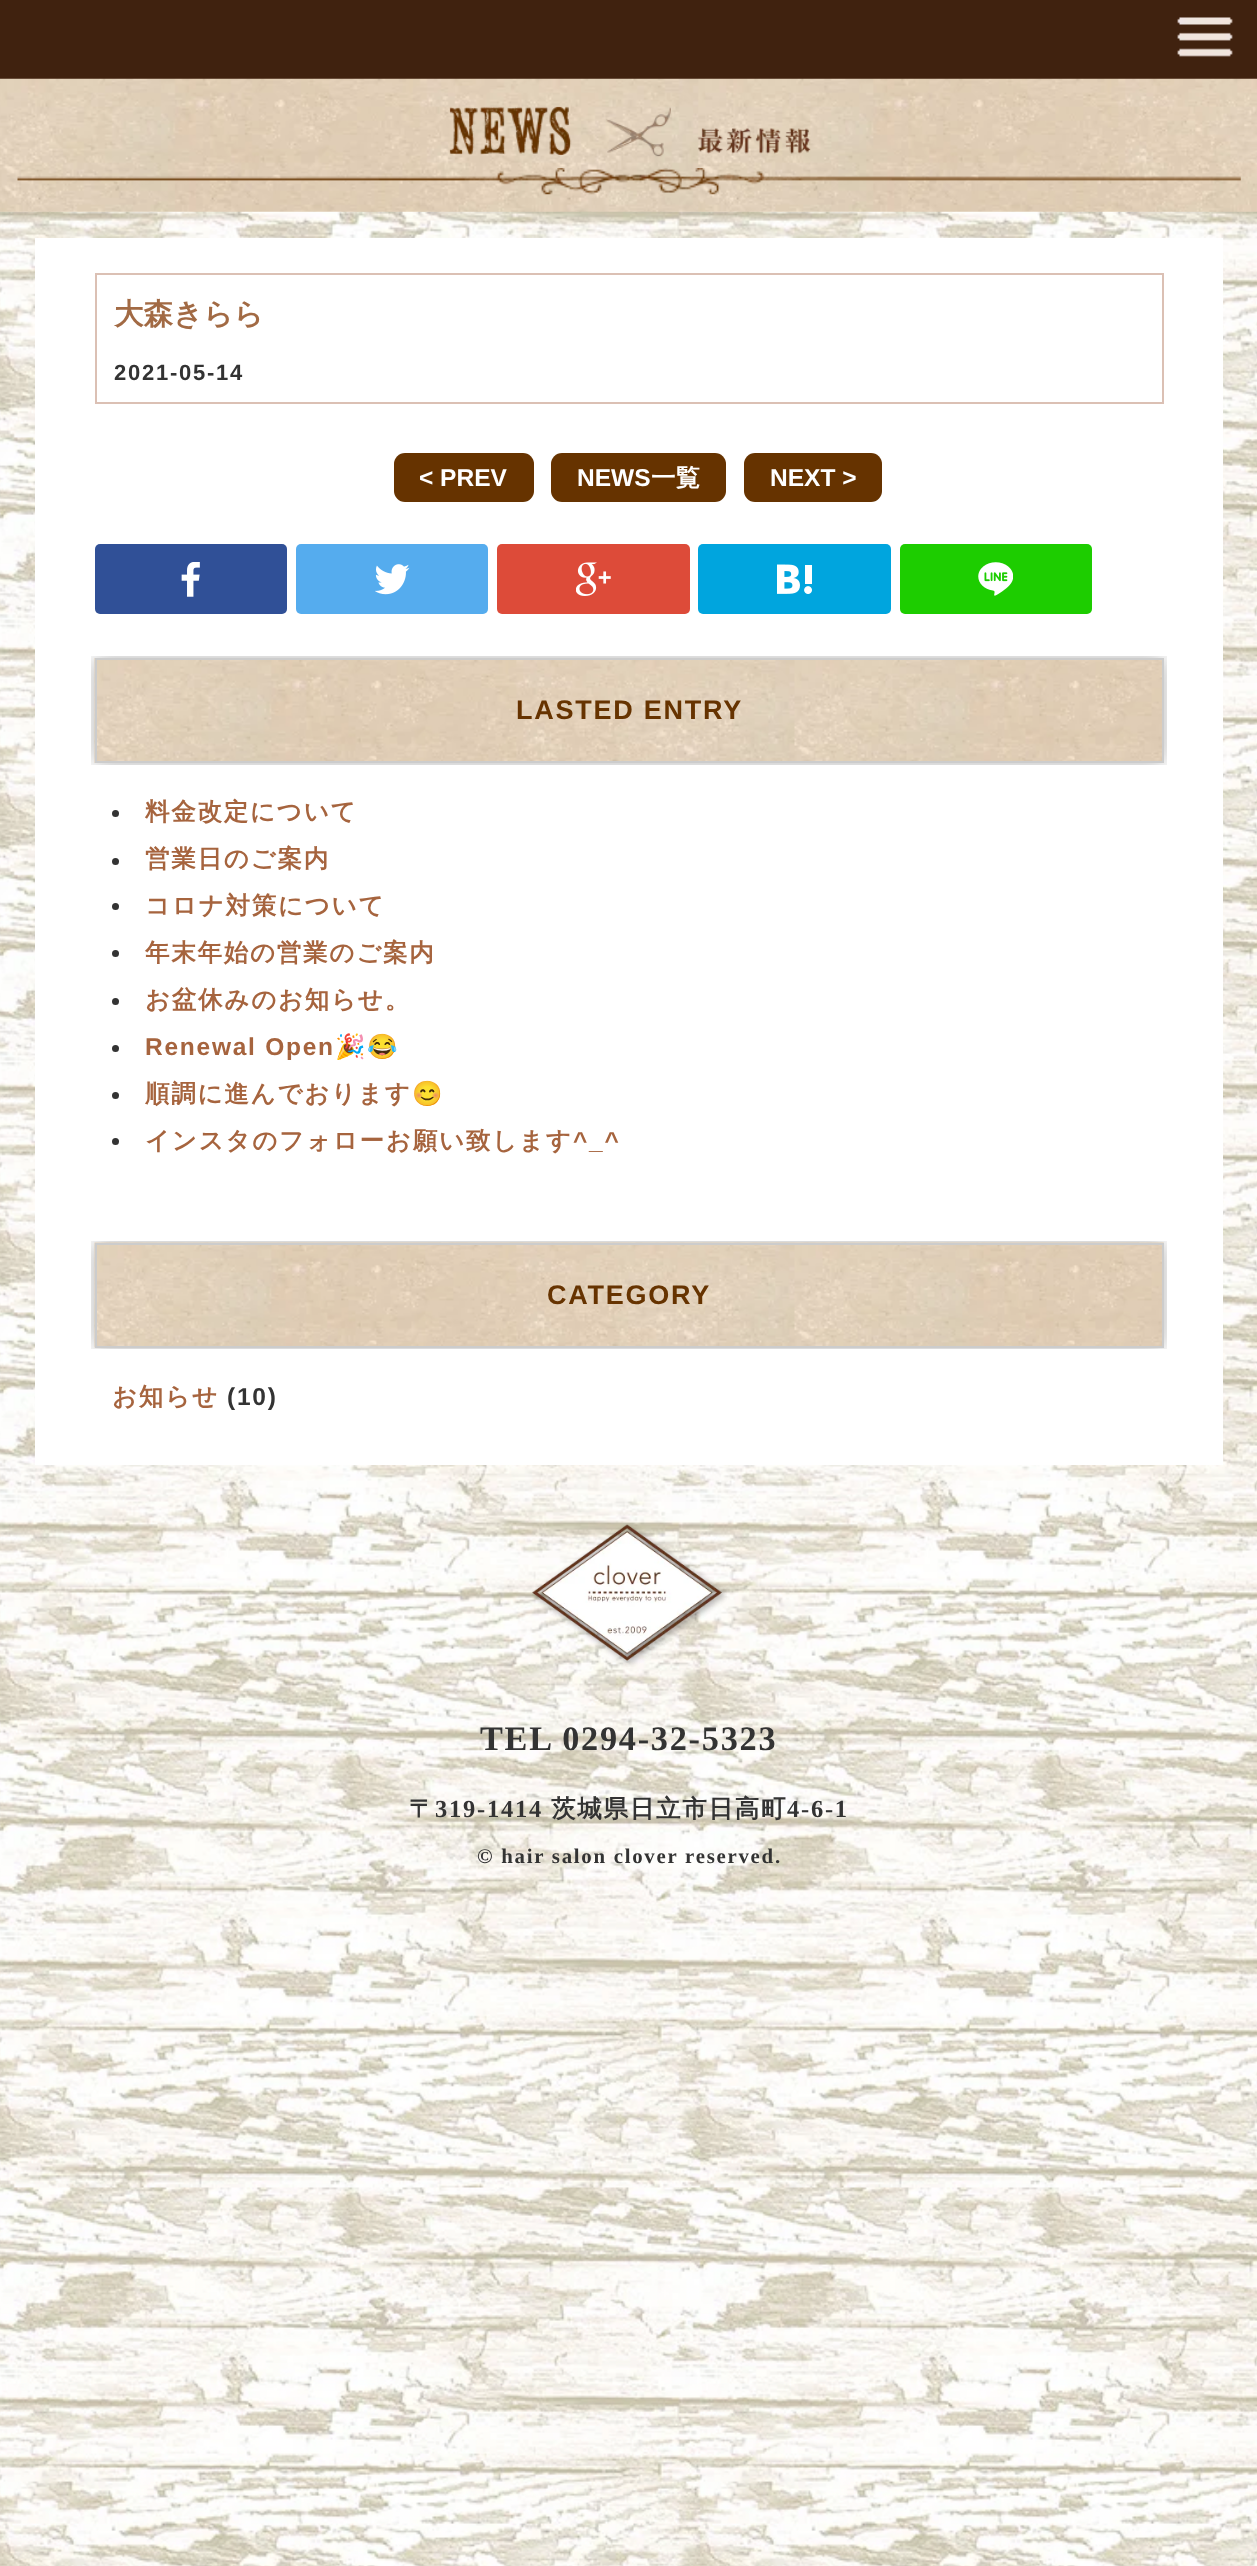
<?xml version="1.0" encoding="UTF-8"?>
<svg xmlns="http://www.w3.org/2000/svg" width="1257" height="2566">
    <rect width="100%" height="100%" fill="#FFFFFF"/>
    <image x="0" y="211" width="1257" height="2355" href="img_01.png"/>
    <rect x="0" y="0" width="1257" height="79" fill="#40220F"/>
    <image x="1177" y="17" width="56" height="40" href="img_02.png"/>
    <image x="0" y="78" width="1257" height="134" href="img_03.png"/>
    <image x="17" y="168" width="1224" height="27" href="img_04.png"/>
    <image x="449" y="106" width="362" height="51" href="img_05.png"/>
    <rect x="35" y="238" width="1188" height="1227" fill="#FFFFFF"/>
    <rect x="96" y="274" width="1067" height="129" fill="none" stroke="#DBC0B4" stroke-width="2"/>
    <text x="114" y="324" font-family="WenQuanYi Zen Hei" font-size="29.5" font-weight="700" fill="#A26A44">大森きらら</text>
    <text x="114" y="380" font-family="Liberation Sans" font-size="22" font-weight="700" letter-spacing="1.75" fill="#333333">2021-05-14</text>
    <rect x="394" y="453" width="140" height="49" rx="11" fill="#663300"/>
    <text x="419" y="486" font-family="Liberation Sans" font-size="24.5" font-weight="700" fill="#FFFFFF">&lt; PREV</text>
    <rect x="551" y="453" width="175" height="49" rx="11" fill="#663300"/>
    <text x="577" y="486" font-family="Liberation Sans" font-size="24.5" font-weight="700" fill="#FFFFFF">NEWS</text>
    <text x="651" y="486" font-family="WenQuanYi Zen Hei" font-size="24.5" font-weight="700" fill="#FFFFFF">一覧</text>
    <rect x="744" y="453" width="138" height="49" rx="11" fill="#663300"/>
    <text x="770" y="486" font-family="Liberation Sans" font-size="24.5" font-weight="700" fill="#FFFFFF">NEXT &gt;</text>
    <rect x="95" y="544" width="192" height="70" rx="5" fill="#305097"/>
    <image x="181" y="562" width="19" height="35" href="img_06.png"/>
    <rect x="296" y="544" width="192" height="70" rx="5" fill="#55ACEE"/>
    <image x="375" y="564" width="35" height="31" href="img_07.png"/>
    <rect x="497" y="544" width="193" height="70" rx="5" fill="#DD4B39"/>
    <image x="576" y="562" width="35" height="34" href="img_08.png"/>
    <rect x="698" y="544" width="193" height="70" rx="5" fill="#00A5DE"/>
    <image x="777" y="564" width="35" height="30" href="img_09.png"/>
    <rect x="900" y="544" width="192" height="70" rx="5" fill="#1DCD00"/>
    <image x="978" y="562" width="35" height="34" href="img_10.png"/>
    <image x="91" y="656" width="1076" height="109" href="img_11.png"/>
    <rect x="96" y="659" width="1067" height="103" fill="none" stroke="#CCCCCC" stroke-width="2"/>
    <text x="516" y="719" font-family="Liberation Sans" font-size="27" font-weight="700" letter-spacing="1.75" fill="#663300">LASTED ENTRY</text>
    <circle cx="115.5" cy="813.5" r="3.5" fill="#333333"/>
    <text x="145" y="820" font-family="WenQuanYi Zen Hei" font-size="24.5" font-weight="700" letter-spacing="1.75" fill="#A6643E">料金改定について</text>
    <circle cx="115.5" cy="861.5" r="3.5" fill="#333333"/>
    <text x="145" y="867" font-family="WenQuanYi Zen Hei" font-size="24.5" font-weight="700" letter-spacing="1.75" fill="#A6643E">営業日のご案内</text>
    <circle cx="115.5" cy="906.5" r="3.5" fill="#333333"/>
    <text x="145" y="914" font-family="WenQuanYi Zen Hei" font-size="24.5" font-weight="700" letter-spacing="1.75" fill="#A6643E">コロナ対策について</text>
    <circle cx="115.5" cy="953.5" r="3.5" fill="#333333"/>
    <text x="145" y="961" font-family="WenQuanYi Zen Hei" font-size="24.5" font-weight="700" letter-spacing="1.75" fill="#A6643E">年末年始の営業のご案内</text>
    <circle cx="115.5" cy="1001.5" r="3.5" fill="#333333"/>
    <text x="145" y="1008" font-family="WenQuanYi Zen Hei" font-size="24.5" font-weight="700" letter-spacing="1.75" fill="#A6643E">お盆休みのお知らせ。</text>
    <circle cx="115.5" cy="1048.5" r="3.5" fill="#333333"/>
    <text x="145" y="1055" font-family="Liberation Sans" font-size="24.5" font-weight="700" letter-spacing="1.75" fill="#A6643E">Renewal Open</text>
    <text x="335" y="1055" font-family="Noto Color Emoji" font-size="24.5" font-weight="700" letter-spacing="1.75" fill="#A6643E">🎉😂</text>
    <circle cx="115.5" cy="1095.5" r="3.5" fill="#333333"/>
    <text x="145" y="1102" font-family="WenQuanYi Zen Hei" font-size="24.5" font-weight="700" letter-spacing="1.75" fill="#A6643E">順調に進んでおります</text>
    <text x="412" y="1102" font-family="Noto Color Emoji" font-size="24.5" font-weight="700" letter-spacing="1.75" fill="#A6643E">😊</text>
    <circle cx="115.5" cy="1141.5" r="3.5" fill="#333333"/>
    <text x="145" y="1149" font-family="WenQuanYi Zen Hei" font-size="24.5" font-weight="700" letter-spacing="1.75" fill="#A6643E">インスタのフォローお願い致します</text>
    <text x="573" y="1149" font-family="Liberation Sans" font-size="24.5" font-weight="700" letter-spacing="1.75" fill="#A6643E">^_^</text>
    <image x="91" y="1241" width="1076" height="108" href="img_12.png"/>
    <rect x="96" y="1244" width="1067" height="103" fill="none" stroke="#CCCCCC" stroke-width="2"/>
    <text x="547" y="1304" font-family="Liberation Sans" font-size="27" font-weight="700" letter-spacing="1.75" fill="#663300">CATEGORY</text>
    <text x="112" y="1405" font-family="WenQuanYi Zen Hei" font-size="24.5" font-weight="700" letter-spacing="1.75" fill="#A6643E">お知らせ</text>
    <text x="227" y="1405" font-family="Liberation Sans" font-size="24.5" font-weight="700" letter-spacing="1.75" fill="#333333">(10)</text>
    <image x="532" y="1523" width="195" height="144" href="img_13.png"/>
    <text x="480" y="1750" font-family="Liberation Serif" font-size="34.25" font-weight="700" letter-spacing="1.75" fill="#333333">TEL 0294-32-5323</text>
    <text x="409" y="1817" font-family="WenQuanYi Zen Hei" font-size="24.5" font-weight="700" letter-spacing="1.75" fill="#333333">〒</text>
    <text x="435" y="1817" font-family="Liberation Serif" font-size="24.5" font-weight="700" letter-spacing="1.75" fill="#333333">319-1414</text>
    <text x="551" y="1817" font-family="WenQuanYi Zen Hei" font-size="24.5" font-weight="700" letter-spacing="1.75" fill="#333333">茨城県日立市日高町</text>
    <text x="787" y="1817" font-family="Liberation Serif" font-size="24.5" font-weight="700" letter-spacing="1.75" fill="#333333">4-6-1</text>
    <text x="477" y="1863" font-family="Liberation Serif" font-size="20.8" font-weight="700" letter-spacing="1.75" fill="#333333">© hair salon clover reserved.</text>
</svg>
